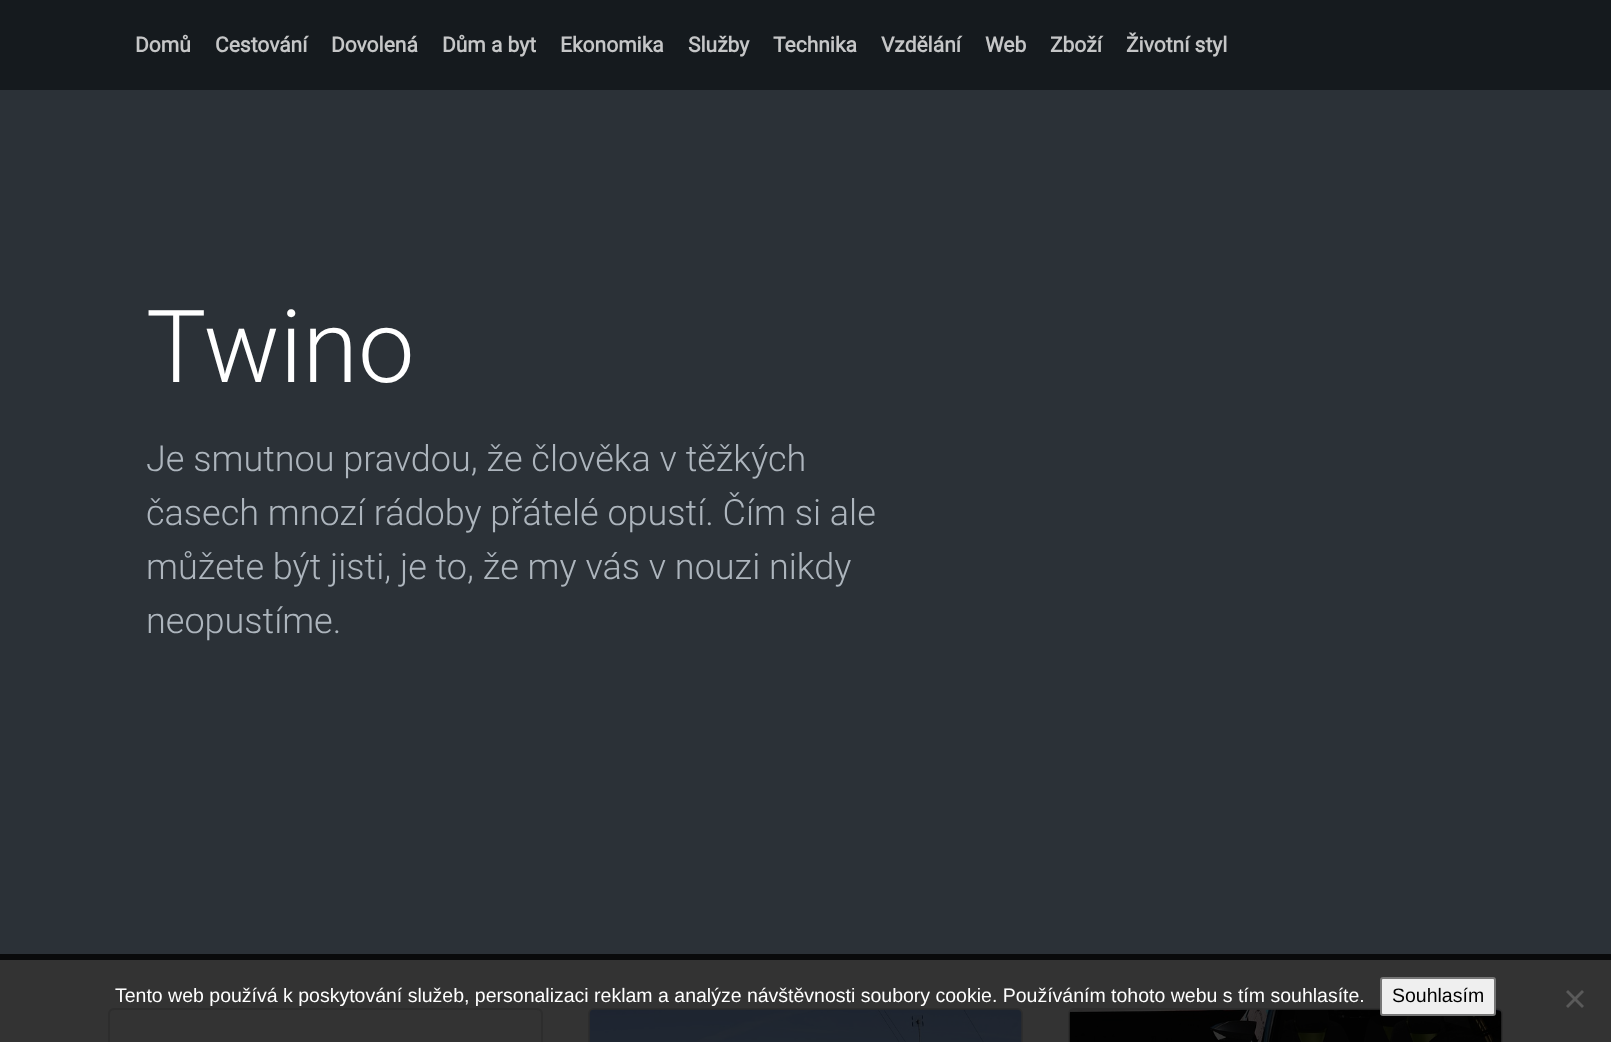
<?xml version="1.0" encoding="UTF-8"?>
<svg xmlns="http://www.w3.org/2000/svg" width="1611" height="1042">
    <rect width="100%" height="100%" fill="#333333"/>
    <rect x="0" y="0" width="1611" height="90" fill="#151A1E"/>
    <text x="135" y="52" font-family="Roboto" font-size="21" font-weight="700" fill="#C5C6C7">Domů</text>
    <text x="215" y="52" font-family="Roboto" font-size="21" font-weight="700" fill="#C5C6C7">Cestování</text>
    <text x="331" y="52" font-family="Roboto" font-size="21" font-weight="700" fill="#C5C6C7">Dovolená</text>
    <text x="442" y="52" font-family="Roboto" font-size="21" font-weight="700" fill="#C5C6C7">Dům a byt</text>
    <text x="560" y="52" font-family="Roboto" font-size="21" font-weight="700" fill="#C5C6C7">Ekonomika</text>
    <text x="688" y="52" font-family="Roboto" font-size="21" font-weight="700" fill="#C5C6C7">Služby</text>
    <text x="773" y="52" font-family="Roboto" font-size="21" font-weight="700" fill="#C5C6C7">Technika</text>
    <text x="881" y="52" font-family="Roboto" font-size="21" font-weight="700" fill="#C5C6C7">Vzdělání</text>
    <text x="985" y="52" font-family="Roboto" font-size="21" font-weight="700" fill="#C5C6C7">Web</text>
    <text x="1050" y="52" font-family="Roboto" font-size="21" font-weight="700" fill="#C5C6C7">Zboží</text>
    <text x="1126" y="52" font-family="Roboto" font-size="21" font-weight="700" fill="#C5C6C7">Životní styl</text>
    <rect x="0" y="90" width="1611" height="864" fill="#2B3137"/>
    <rect x="0" y="954" width="1611" height="6" fill="#090A0B"/>
    <text x="146" y="382" font-family="Roboto" font-size="101" font-weight="300" fill="#FFFFFF">Twino</text>
    <text font-family="Roboto" font-size="36" font-weight="300" fill="#ADB5BD">
        <tspan x="146" y="471">Je smutnou pravdou, že člověka v těžkých</tspan>
        <tspan x="146" y="525">časech mnozí rádoby přátelé opustí. Čím si ale</tspan>
        <tspan x="146" y="579">můžete být jisti, je to, že my vás v nouzi nikdy</tspan>
        <tspan x="146" y="633">neopustíme.</tspan>
    </text>
    <rect x="109" y="1009" width="433" height="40" rx="5" fill="none" stroke="#2D2D2D" stroke-width="2"/>
    <rect x="589" y="1009" width="433" height="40" rx="5" fill="none" stroke="#2D2D2D" stroke-width="2"/>
    <image x="589" y="1009" width="433" height="33" href="img_01.png"/>
    <rect x="1069" y="1009" width="433" height="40" rx="5" fill="none" stroke="#2D2D2D" stroke-width="2"/>
    <image x="1069" y="1009" width="433" height="33" href="img_02.png"/>
    <text x="115" y="1002" font-family="Liberation Sans" font-size="19.5" fill="#FFFFFF">Tento web používá k poskytování služeb, personalizaci reklam a analýze návštěvnosti soubory cookie. Používáním tohoto webu s tím souhlasíte.</text>
    <rect x="1381" y="978" width="114" height="37" rx="2" fill="#EFEFEF" stroke="#767676" stroke-width="2"/>
    <text x="1392" y="1002" font-family="Liberation Sans" font-size="19.5" fill="#000000">Souhlasím</text>
    <path d="M 1582 990 L 1584 992 L 1568 1008 L 1566 1006 Z" fill="#5A5A5A"/>
    <path d="M 1566 992 L 1568 990 L 1584 1006 L 1582 1008 Z" fill="#5A5A5A"/>
</svg>
